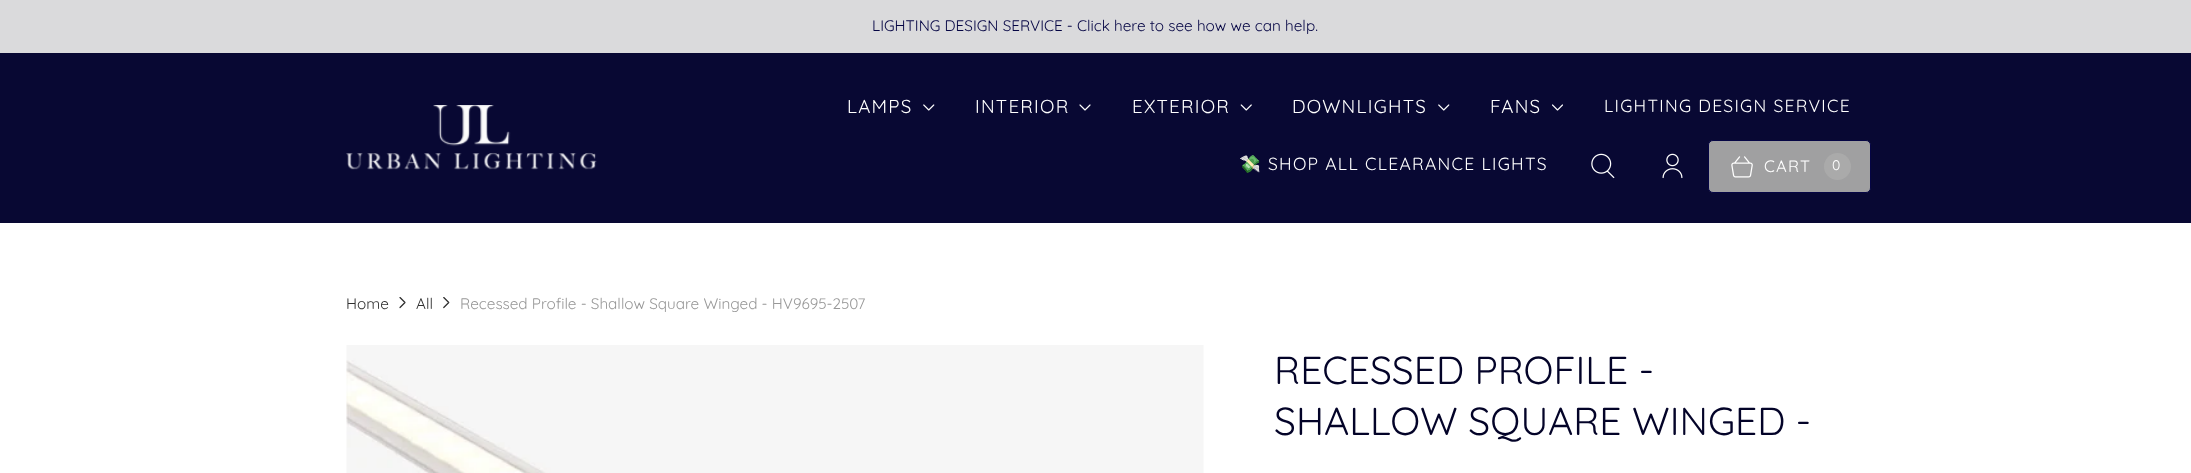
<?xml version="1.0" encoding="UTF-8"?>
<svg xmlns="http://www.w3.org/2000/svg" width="2191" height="473">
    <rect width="100%" height="100%" fill="#FFFFFF"/>
    <rect x="0" y="0" width="2191" height="53" fill="#DADADC"/>
    <text x="872" y="31" font-family="Quicksand" font-size="15.3" fill="#050544">LIGHTING DESIGN SERVICE - Click here to see how we can help.</text>
    <rect x="0" y="53" width="2191" height="170" fill="#080833"/>
    <image x="346" y="105" width="251" height="65" href="img_01.png"/>
    <text x="847" y="113" font-family="Quicksand" font-size="18.75" letter-spacing="1.25" fill="#FFFFFF">LAMPS</text>
    <image x="923" y="104" width="12" height="7" href="img_02.png"/>
    <text x="975" y="113" font-family="Quicksand" font-size="18.75" letter-spacing="1.25" fill="#FFFFFF">INTERIOR</text>
    <image x="1079" y="104" width="12" height="7" href="img_03.png"/>
    <text x="1132" y="113" font-family="Quicksand" font-size="18.75" letter-spacing="1.25" fill="#FFFFFF">EXTERIOR</text>
    <image x="1240" y="104" width="12" height="7" href="img_04.png"/>
    <text x="1292" y="113" font-family="Quicksand" font-size="18.75" letter-spacing="1.25" fill="#FFFFFF">DOWNLIGHTS</text>
    <image x="1438" y="104" width="12" height="7" href="img_02.png"/>
    <text x="1490" y="113" font-family="Quicksand" font-size="18.75" letter-spacing="1.25" fill="#FFFFFF">FANS</text>
    <image x="1552" y="104" width="11" height="7" href="img_05.png"/>
    <text x="1604" y="112" font-family="Quicksand" font-size="17.5" letter-spacing="1.25" fill="#FFFFFF">LIGHTING DESIGN SERVICE</text>
    <text x="1239" y="170" font-family="Noto Color Emoji" font-size="17.5" letter-spacing="1.25" fill="#FFFFFF">💸</text>
    <text x="1268" y="170" font-family="Quicksand" font-size="17.5" letter-spacing="1.25" fill="#FFFFFF">SHOP ALL CLEARANCE LIGHTS</text>
    <image x="1591" y="153" width="24" height="26" href="img_06.png"/>
    <image x="1662" y="153" width="21" height="26" href="img_07.png"/>
    <rect x="1708.5" y="140.5" width="162" height="52" rx="4.5" fill="#A0A0A1" stroke="#050544"/>
    <image x="1731" y="156" width="22" height="22" href="img_08.png"/>
    <text x="1764" y="172" font-family="Quicksand" font-size="16.5" letter-spacing="1.25" fill="#FFFFFF">CART</text>
    <circle cx="1837.5" cy="166.5" r="13.5" fill="#AAAAAA"/>
    <text x="1832" y="170" font-family="Quicksand" font-size="14" letter-spacing="1.25" fill="#FFFFFF">0</text>
    <text x="346" y="309" font-family="Quicksand" font-size="15.3" fill="#303030">Home</text>
    <image x="399" y="297" width="7" height="12" href="img_09.png"/>
    <text x="416" y="309" font-family="Quicksand" font-size="15.3" fill="#303030">All</text>
    <image x="443" y="297" width="7" height="12" href="img_10.png"/>
    <text x="460" y="309" font-family="Quicksand" font-size="15.3" fill="#989898">Recessed Profile - Shallow Square Winged - HV9695-2507</text>
    <image x="346" y="345" width="858" height="128" href="img_11.png"/>
    <text font-family="Quicksand" font-size="39" fill="#030328">
        <tspan x="1274" y="384">RECESSED PROFILE -</tspan>
        <tspan x="1274" y="435">SHALLOW SQUARE WINGED -</tspan>
    </text>
</svg>
